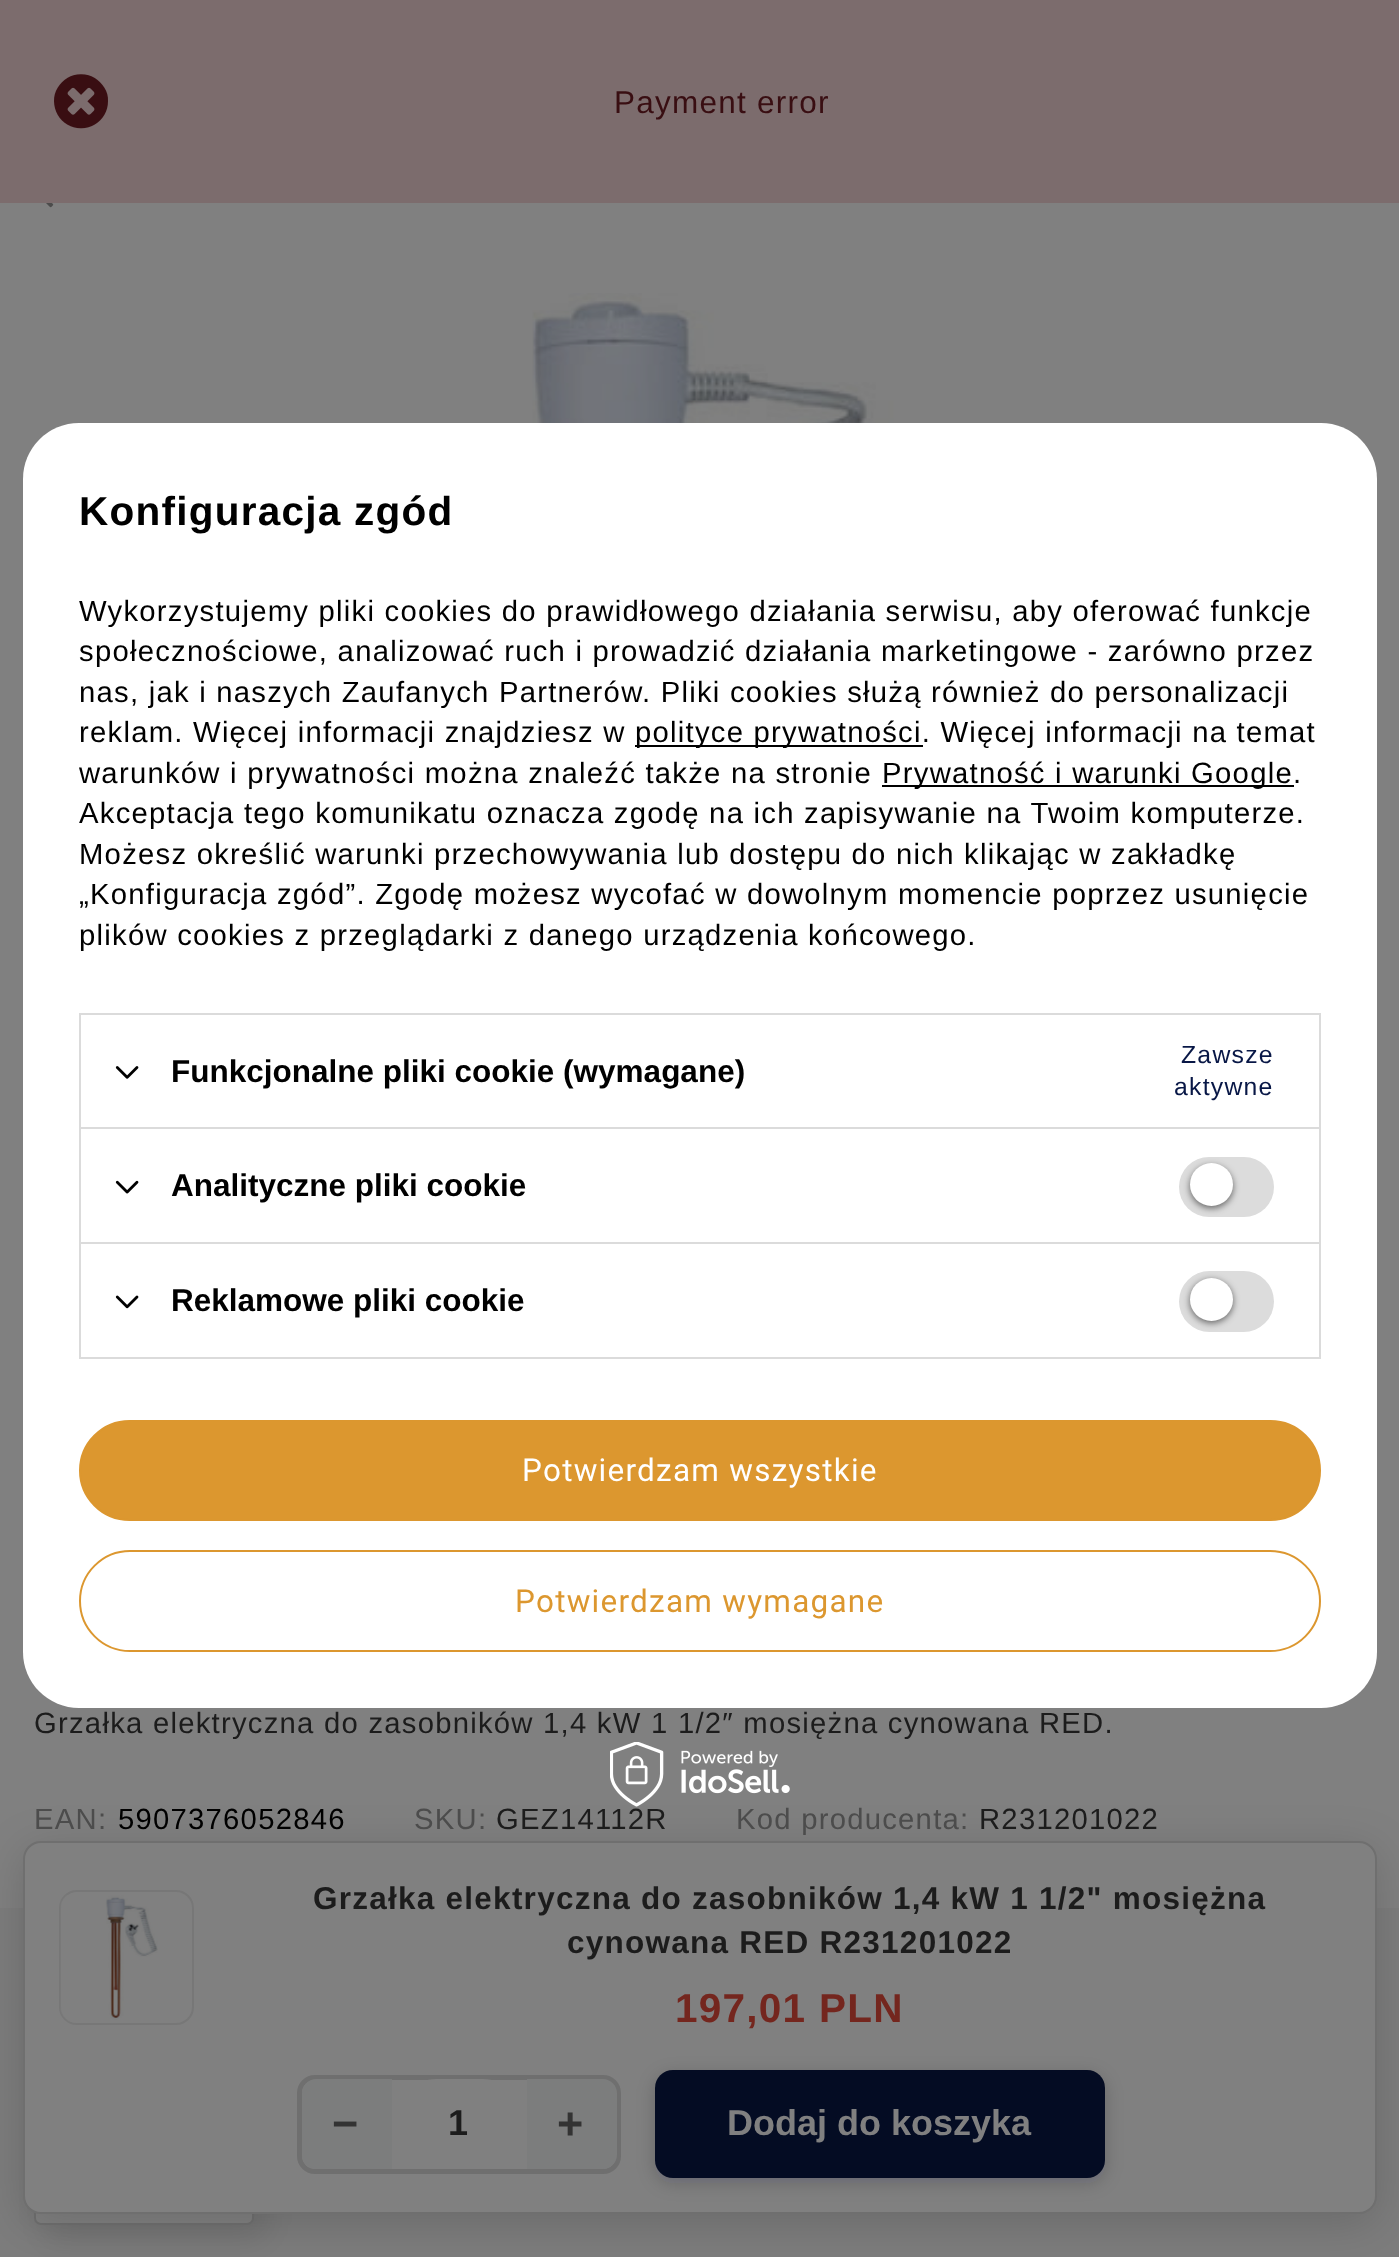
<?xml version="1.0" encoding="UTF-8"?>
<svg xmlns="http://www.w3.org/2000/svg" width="1399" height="2257">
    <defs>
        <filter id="blur1" x="-50%" y="-200%" width="200%" height="500%"><feGaussianBlur stdDeviation="3.5"/></filter>
        <filter id="blur2" x="-50%" y="-200%" width="200%" height="500%"><feGaussianBlur stdDeviation="17"/></filter>
        <filter id="blur3" x="-50%" y="-200%" width="200%" height="500%"><feGaussianBlur stdDeviation="22.5"/></filter>
        <filter id="blur4" x="-50%" y="-200%" width="200%" height="500%"><feGaussianBlur stdDeviation="9"/></filter>
    </defs>
    <rect width="100%" height="100%" fill="#808080"/>
    <rect x="0" y="0" width="1399" height="203" fill="#7C6C6D"/>
    <image x="54" y="74" width="54" height="55" href="img_01.png"/>
    <text x="614" y="113" font-family="Liberation Sans" font-size="31.5" letter-spacing="1.25" fill="#390E12">Payment error</text>
    <rect x="23" y="423" width="1354" height="1285" rx="56" fill="#FFFFFF"/>
    <text x="79" y="525" font-family="Liberation Sans" font-size="40.5" font-weight="700" letter-spacing="1.25" fill="#000000">Konfiguracja zgód</text>
    <text font-family="Liberation Sans" font-size="29.25" letter-spacing="1.25" fill="#000000">
        <tspan x="79" y="621">Wykorzystujemy pliki cookies do prawidłowego działania serwisu, aby oferować funkcje</tspan>
        <tspan x="79" y="661">społecznościowe, analizować ruch i prowadzić działania marketingowe - zarówno przez</tspan>
        <tspan x="79" y="702">nas, jak i naszych Zaufanych Partnerów. Pliki cookies służą również do personalizacji</tspan>
        <tspan x="79" y="742">reklam. Więcej informacji znajdziesz w</tspan>
    </text>
    <rect x="635" y="745" width="288" height="2" fill="#000000"/>
    <text x="635" y="742" font-family="Liberation Sans" font-size="29.25" letter-spacing="1.25" fill="#000000">polityce prywatności. Więcej informacji na temat</text>
    <text x="79" y="783" font-family="Liberation Sans" font-size="29.25" letter-spacing="1.25" fill="#000000">warunków i prywatności można znaleźć także na stronie</text>
    <rect x="882" y="785" width="412" height="2" fill="#000000"/>
    <text x="882" y="783" font-family="Liberation Sans" font-size="29.25" letter-spacing="1.25" fill="#000000">Prywatność i warunki Google.</text>
    <text font-family="Liberation Sans" font-size="29.25" letter-spacing="1.25" fill="#000000">
        <tspan x="79" y="823">Akceptacja tego komunikatu oznacza zgodę na ich zapisywanie na Twoim komputerze.</tspan>
        <tspan x="79" y="864">Możesz określić warunki przechowywania lub dostępu do nich klikając w zakładkę</tspan>
        <tspan x="79" y="904">„Konfiguracja zgód”. Zgodę możesz wycofać w dowolnym momencie poprzez usunięcie</tspan>
        <tspan x="79" y="945">plików cookies z przeglądarki z danego urządzenia końcowego.</tspan>
    </text>
    <rect x="79" y="1013" width="1242" height="2" fill="#DBDBDB"/>
    <rect x="1319" y="1013" width="2" height="114" fill="#DBDBDB"/>
    <rect x="79" y="1013" width="2" height="114" fill="#DBDBDB"/>
    <image x="115" y="1066" width="24" height="13" href="img_02.png"/>
    <text x="171" y="1082" font-family="Liberation Sans" font-size="31.5" font-weight="700" fill="#000000">Funkcjonalne pliki cookie (wymagane)</text>
    <text x="1181" y="1063" font-family="Liberation Sans" font-size="24.75" letter-spacing="1.25" fill="#081746">Zawsze</text>
    <text x="1174" y="1095" font-family="Liberation Sans" font-size="24.75" letter-spacing="1.25" fill="#081746">aktywne</text>
    <rect x="79" y="1127" width="1242" height="2" fill="#DBDBDB"/>
    <rect x="1319" y="1127" width="2" height="115" fill="#DBDBDB"/>
    <rect x="79" y="1127" width="2" height="115" fill="#DBDBDB"/>
    <image x="115" y="1180" width="24" height="14" href="img_03.png"/>
    <text x="171" y="1196" font-family="Liberation Sans" font-size="31.5" font-weight="700" fill="#000000">Analityczne pliki cookie</text>
    <rect x="1179" y="1157" width="95" height="60" rx="30" fill="#DCDCDC"/>
    <rect x="1190" y="1166" width="43" height="42" rx="21" fill="#000000" fill-opacity="0.56" filter="url(#blur1)"/>
    <circle cx="1211.5" cy="1184.5" r="21.5" fill="#FFFFFF"/>
    <rect x="80" y="1243" width="1240" height="115" fill="none" stroke="#DBDBDB" stroke-width="2"/>
    <image x="115" y="1295" width="24" height="14" href="img_04.png"/>
    <text x="171" y="1311" font-family="Liberation Sans" font-size="31.5" font-weight="700" fill="#000000">Reklamowe pliki cookie</text>
    <rect x="1179" y="1271" width="95" height="61" rx="30.5" fill="#DCDCDC"/>
    <rect x="1190" y="1280" width="43" height="43" rx="21.5" fill="#000000" fill-opacity="0.56" filter="url(#blur1)"/>
    <circle cx="1211.5" cy="1299.5" r="21.5" fill="#FFFFFF"/>
    <rect x="80" y="1421" width="1240" height="99" rx="49.5" fill="#DC972F" stroke="#DC972F" stroke-width="2"/>
    <text x="522" y="1481" font-family="Roboto" font-size="31.5" letter-spacing="1.25" fill="#FFFFFF">Potwierdzam wszystkie</text>
    <rect x="80" y="1551" width="1240" height="100" rx="50" fill="none" stroke="#DC972F" stroke-width="2"/>
    <text x="515" y="1612" font-family="Roboto" font-size="31.5" letter-spacing="1.25" fill="#DC972F">Potwierdzam wymagane</text>
    <rect x="0" y="1908" width="1399" height="349" fill="#7C7C7C"/>
    <rect x="45" y="1881" width="221" height="356" rx="7" fill="#000000" fill-opacity="0.1" filter="url(#blur2)"/>
    <rect x="35" y="1871" width="218" height="353" rx="6" fill="#808080" stroke="#6F6F6F" stroke-width="2"/>
    <rect x="23" y="1850" width="1354" height="373" rx="18" fill="#000000" fill-opacity="0.15" filter="url(#blur3)"/>
    <image x="610" y="1742" width="180" height="65" href="img_05.png"/>
    <image x="46" y="203" width="8" height="5" href="img_06.png"/>
    <image x="532" y="293" width="451" height="130" href="img_07.png"/>
    <text x="34" y="1733" font-family="Liberation Sans" font-size="29.25" letter-spacing="1.25" fill="#1C1C1C">Grzałka elektryczna do zasobników 1,4 kW 1 1/2″ mosiężna cynowana RED.</text>
    <text x="34" y="1829" font-family="Liberation Sans" font-size="29.25" letter-spacing="1.25" fill="#4C4C4C">EAN:</text>
    <text x="118" y="1829" font-family="Liberation Sans" font-size="29.25" letter-spacing="1.25" fill="#000000">5907376052846</text>
    <text x="414" y="1829" font-family="Liberation Sans" font-size="29.25" letter-spacing="1.25" fill="#4C4C4C">SKU:</text>
    <text x="496" y="1829" font-family="Liberation Sans" font-size="29.25" letter-spacing="1.25" fill="#1C1C1C">GEZ14112R</text>
    <text x="736" y="1829" font-family="Liberation Sans" font-size="29.25" letter-spacing="1.25" fill="#4C4C4C">Kod producenta:</text>
    <text x="979" y="1829" font-family="Liberation Sans" font-size="29.25" letter-spacing="1.25" fill="#1C1C1C">R231201022</text>
    <rect x="24" y="1842" width="1352" height="371" rx="17" fill="#808080" stroke="#6F6F6F" stroke-width="2"/>
    <rect x="60" y="1891" width="133" height="133" rx="17" fill="none" stroke="#777777" stroke-width="2"/>
    <image x="60" y="1895" width="98" height="128" href="img_08.png"/>
    <text x="313" y="1909" font-family="Liberation Sans" font-size="31.5" font-weight="700" letter-spacing="1.25" fill="#1C1C1C">Grzałka elektryczna do zasobników 1,4 kW 1 1/2" mosiężna</text>
    <text x="567" y="1953" font-family="Liberation Sans" font-size="31.5" font-weight="700" letter-spacing="1.25" fill="#1C1C1C">cynowana RED R231201022</text>
    <text x="675" y="2022" font-family="Liberation Sans" font-size="40.5" font-weight="700" letter-spacing="1.25" fill="#74261E">197,01 PLN</text>
    <rect x="299.5" y="2077.5" width="319" height="94" rx="15.5" fill="none" stroke="#6F6F6F" stroke-width="5"/>
    <path d="M 316 2079 H 392 V 2169 H 316 C 308.5 2169 302 2162.5 302 2155 V 2093 C 302 2085.5 308.5 2079 316 2079 Z" fill="#7C7D7D"/>
    <text x="332" y="2139" font-family="Liberation Sans" font-size="45" font-weight="700" fill="#333333">−</text>
    <rect x="392" y="2079" width="135" height="90" rx="45" fill="#808080"/>
    <text x="448" y="2135" font-family="Liberation Sans" font-size="36" font-weight="700" fill="#1C1C1C">1</text>
    <path d="M 527 2079 H 603 C 610.5 2079 617 2085.5 617 2093 V 2155 C 617 2162.5 610.5 2169 603 2169 H 527 Z" fill="#7C7D7D"/>
    <text x="557" y="2139" font-family="Liberation Sans" font-size="45" font-weight="700" fill="#333333">+</text>
    <rect x="655" y="2075" width="450" height="108" rx="18" fill="#040C23" fill-opacity="0.2" filter="url(#blur4)"/>
    <rect x="655" y="2070" width="450" height="108" rx="18" fill="#040C23"/>
    <text x="727" y="2135" font-family="Liberation Sans" font-size="36" font-weight="700" fill="#808080">Dodaj do koszyka</text>
</svg>
